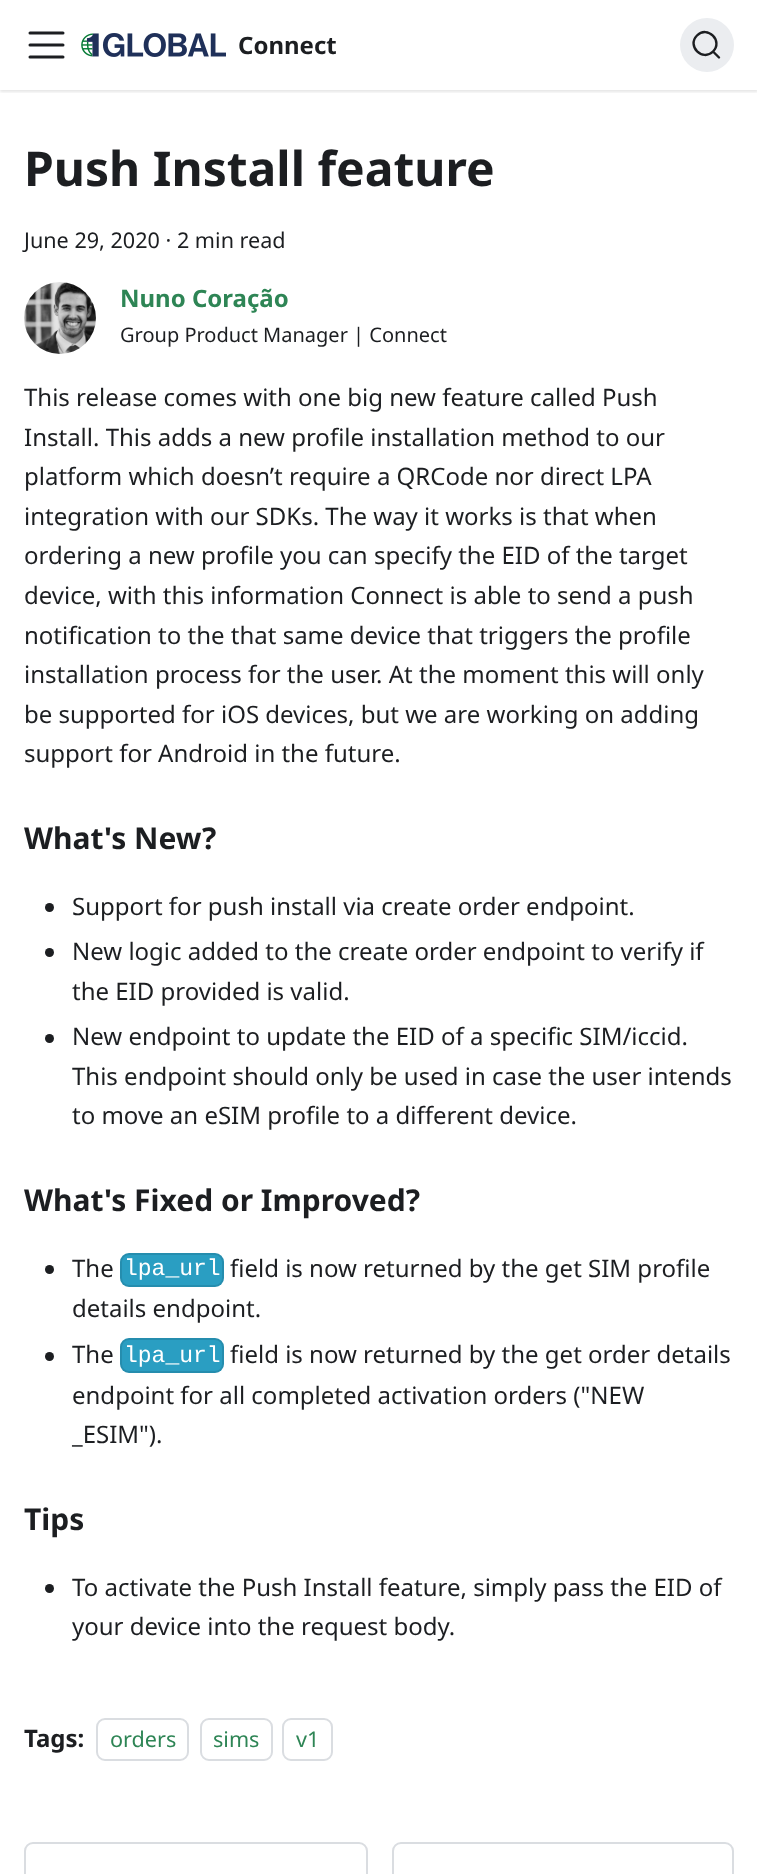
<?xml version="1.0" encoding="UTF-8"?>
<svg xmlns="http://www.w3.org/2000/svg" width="757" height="1874">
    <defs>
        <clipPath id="clip1"><rect x="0" y="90" width="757" height="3"/></clipPath>
        <filter id="blur1" x="-50%" y="-200%" width="200%" height="500%"><feGaussianBlur stdDeviation="1.5"/></filter>
    </defs>
    <rect width="100%" height="100%" fill="#FFFFFF"/>
    <g clip-path="url(#clip1)">
        <rect x="0" y="2" width="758" height="90" fill="#000000" fill-opacity="0.1" filter="url(#blur1)"/>
    </g>
    <path d="M 30 33 H 63 M 30 45 H 63 M 30 57 H 63" fill="none" stroke="#1C1E21" stroke-width="3" stroke-linecap="round"/>
    <image x="81" y="33" width="145" height="24" href="img_01.png"/>
    <text x="238" y="54" font-family="Noto Sans" font-size="24" font-weight="700" fill="#1C1E21">Connect</text>
    <circle cx="707" cy="45" r="27" fill="#EBEDF0"/>
    <path d="M 713 51.5 L 719 57.5 L 713 51.5 C 702.5 62 686.5 46 697 35.5 C 707.5 25 723.5 41 713 51.5 Z" fill="none" stroke="#1C1E21" stroke-width="2.4" stroke-linecap="round" stroke-linejoin="round"/>
    <text x="24" y="186" font-family="Noto Sans" font-size="48" font-weight="700" fill="#1C1E21">Push Install feature</text>
    <text x="24" y="248" font-family="Noto Sans" font-size="21.6" fill="#1C1E21">June 29, 2020 · 2 min read</text>
    <image x="24" y="282" width="72" height="72" href="img_02.png"/>
    <text x="120" y="307" font-family="Noto Sans" font-size="24" font-weight="700" fill="#2E8555">Nuno Coração</text>
    <text x="120" y="342" font-family="Noto Sans" font-size="20" fill="#1C1E21">Group Product Manager | Connect</text>
    <text font-family="Noto Sans" font-size="24" fill="#1C1E21">
        <tspan x="24" y="406">This release comes with one big new feature called Push</tspan>
        <tspan x="24" y="446">Install. This adds a new profile installation method to our</tspan>
        <tspan x="24" y="485">platform which doesn’t require a QRCode nor direct LPA</tspan>
        <tspan x="24" y="525">integration with our SDKs. The way it works is that when</tspan>
        <tspan x="24" y="564">ordering a new profile you can specify the EID of the target</tspan>
        <tspan x="24" y="604">device, with this information Connect is able to send a push</tspan>
        <tspan x="24" y="644">notification to the that same device that triggers the profile</tspan>
        <tspan x="24" y="683">installation process for the user. At the moment this will only</tspan>
        <tspan x="24" y="723">be supported for iOS devices, but we are working on adding</tspan>
        <tspan x="24" y="762">support for Android in the future.</tspan>
    </text>
    <text x="24" y="849" font-family="Noto Sans" font-size="30" font-weight="700" fill="#1C1E21">What's New?</text>
    <circle cx="49.5" cy="907.5" r="4.5" fill="#1C1E21"/>
    <text x="72" y="915" font-family="Noto Sans" font-size="24" fill="#1C1E21">Support for push install via create order endpoint.</text>
    <circle cx="49.5" cy="952.5" r="4.5" fill="#1C1E21"/>
    <text font-family="Noto Sans" font-size="24" fill="#1C1E21">
        <tspan x="72" y="960">New logic added to the create order endpoint to verify if</tspan>
        <tspan x="72" y="1000">the EID provided is valid.</tspan>
    </text>
    <circle cx="49.5" cy="1038.5" r="4.5" fill="#1C1E21"/>
    <text font-family="Noto Sans" font-size="24" fill="#1C1E21">
        <tspan x="72" y="1045">New endpoint to update the EID of a specific SIM/iccid.</tspan>
        <tspan x="72" y="1085">This endpoint should only be used in case the user intends</tspan>
        <tspan x="72" y="1124">to move an eSIM profile to a different device.</tspan>
    </text>
    <text x="24" y="1211" font-family="Noto Sans" font-size="30" font-weight="700" fill="#1C1E21">What's Fixed or Improved?</text>
    <circle cx="49.5" cy="1269.5" r="4.5" fill="#1C1E21"/>
    <text x="72" y="1277" font-family="Noto Sans" font-size="24" fill="#1C1E21">The</text>
    <rect x="120" y="1253" width="104" height="34" rx="9" fill="#2A9EC2"/>
    <rect x="121" y="1254" width="102" height="32" rx="8" fill="none" stroke="#000000" stroke-opacity="0.1" stroke-width="2"/>
    <text x="124" y="1275" font-family="Liberation Mono" font-size="23" fill="#FFFFFF">lpa_url</text>
    <text x="230" y="1277" font-family="Noto Sans" font-size="24" fill="#1C1E21">field is now returned by the get SIM profile</text>
    <text x="72" y="1317" font-family="Noto Sans" font-size="24" fill="#1C1E21">details endpoint.</text>
    <circle cx="49.5" cy="1356.5" r="4.5" fill="#1C1E21"/>
    <text x="72" y="1363" font-family="Noto Sans" font-size="24" fill="#1C1E21">The</text>
    <rect x="120" y="1338" width="104" height="35" rx="9" fill="#2A9EC2"/>
    <rect x="121" y="1339" width="102" height="33" rx="8" fill="none" stroke="#000000" stroke-opacity="0.1" stroke-width="2"/>
    <text x="124" y="1362" font-family="Liberation Mono" font-size="23" fill="#FFFFFF">lpa_url</text>
    <text x="230" y="1363" font-family="Noto Sans" font-size="24" fill="#1C1E21">field is now returned by the get order details</text>
    <text font-family="Noto Sans" font-size="24" fill="#1C1E21">
        <tspan x="72" y="1404">endpoint for all completed activation orders ("NEW</tspan>
        <tspan x="72" y="1443">_ESIM").</tspan>
    </text>
    <text x="24" y="1530" font-family="Noto Sans" font-size="30" font-weight="700" fill="#1C1E21">Tips</text>
    <circle cx="49.5" cy="1588.5" r="4.5" fill="#1C1E21"/>
    <text font-family="Noto Sans" font-size="24" fill="#1C1E21">
        <tspan x="72" y="1596">To activate the Push Install feature, simply pass the EID of</tspan>
        <tspan x="72" y="1635">your device into the request body.</tspan>
    </text>
    <text x="24" y="1747" font-family="Noto Sans" font-size="24" font-weight="700" fill="#1C1E21">Tags:</text>
    <rect x="97" y="1719" width="91" height="41" rx="8" fill="none" stroke="#DADDE1" stroke-width="2"/>
    <text x="110" y="1747" font-family="Noto Sans" font-size="21.6" fill="#2E8555">orders</text>
    <rect x="201" y="1719" width="71" height="41" rx="8" fill="none" stroke="#DADDE1" stroke-width="2"/>
    <text x="213" y="1747" font-family="Noto Sans" font-size="21.6" fill="#2E8555">sims</text>
    <rect x="283" y="1719" width="49" height="41" rx="8" fill="none" stroke="#DADDE1" stroke-width="2"/>
    <text x="296" y="1747" font-family="Noto Sans" font-size="21.6" fill="#2E8555">v1</text>
    <rect x="25" y="1843" width="342" height="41" rx="8" fill="none" stroke="#DADDE1" stroke-width="2"/>
    <rect x="393" y="1843" width="340" height="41" rx="8" fill="none" stroke="#DADDE1" stroke-width="2"/>
</svg>
